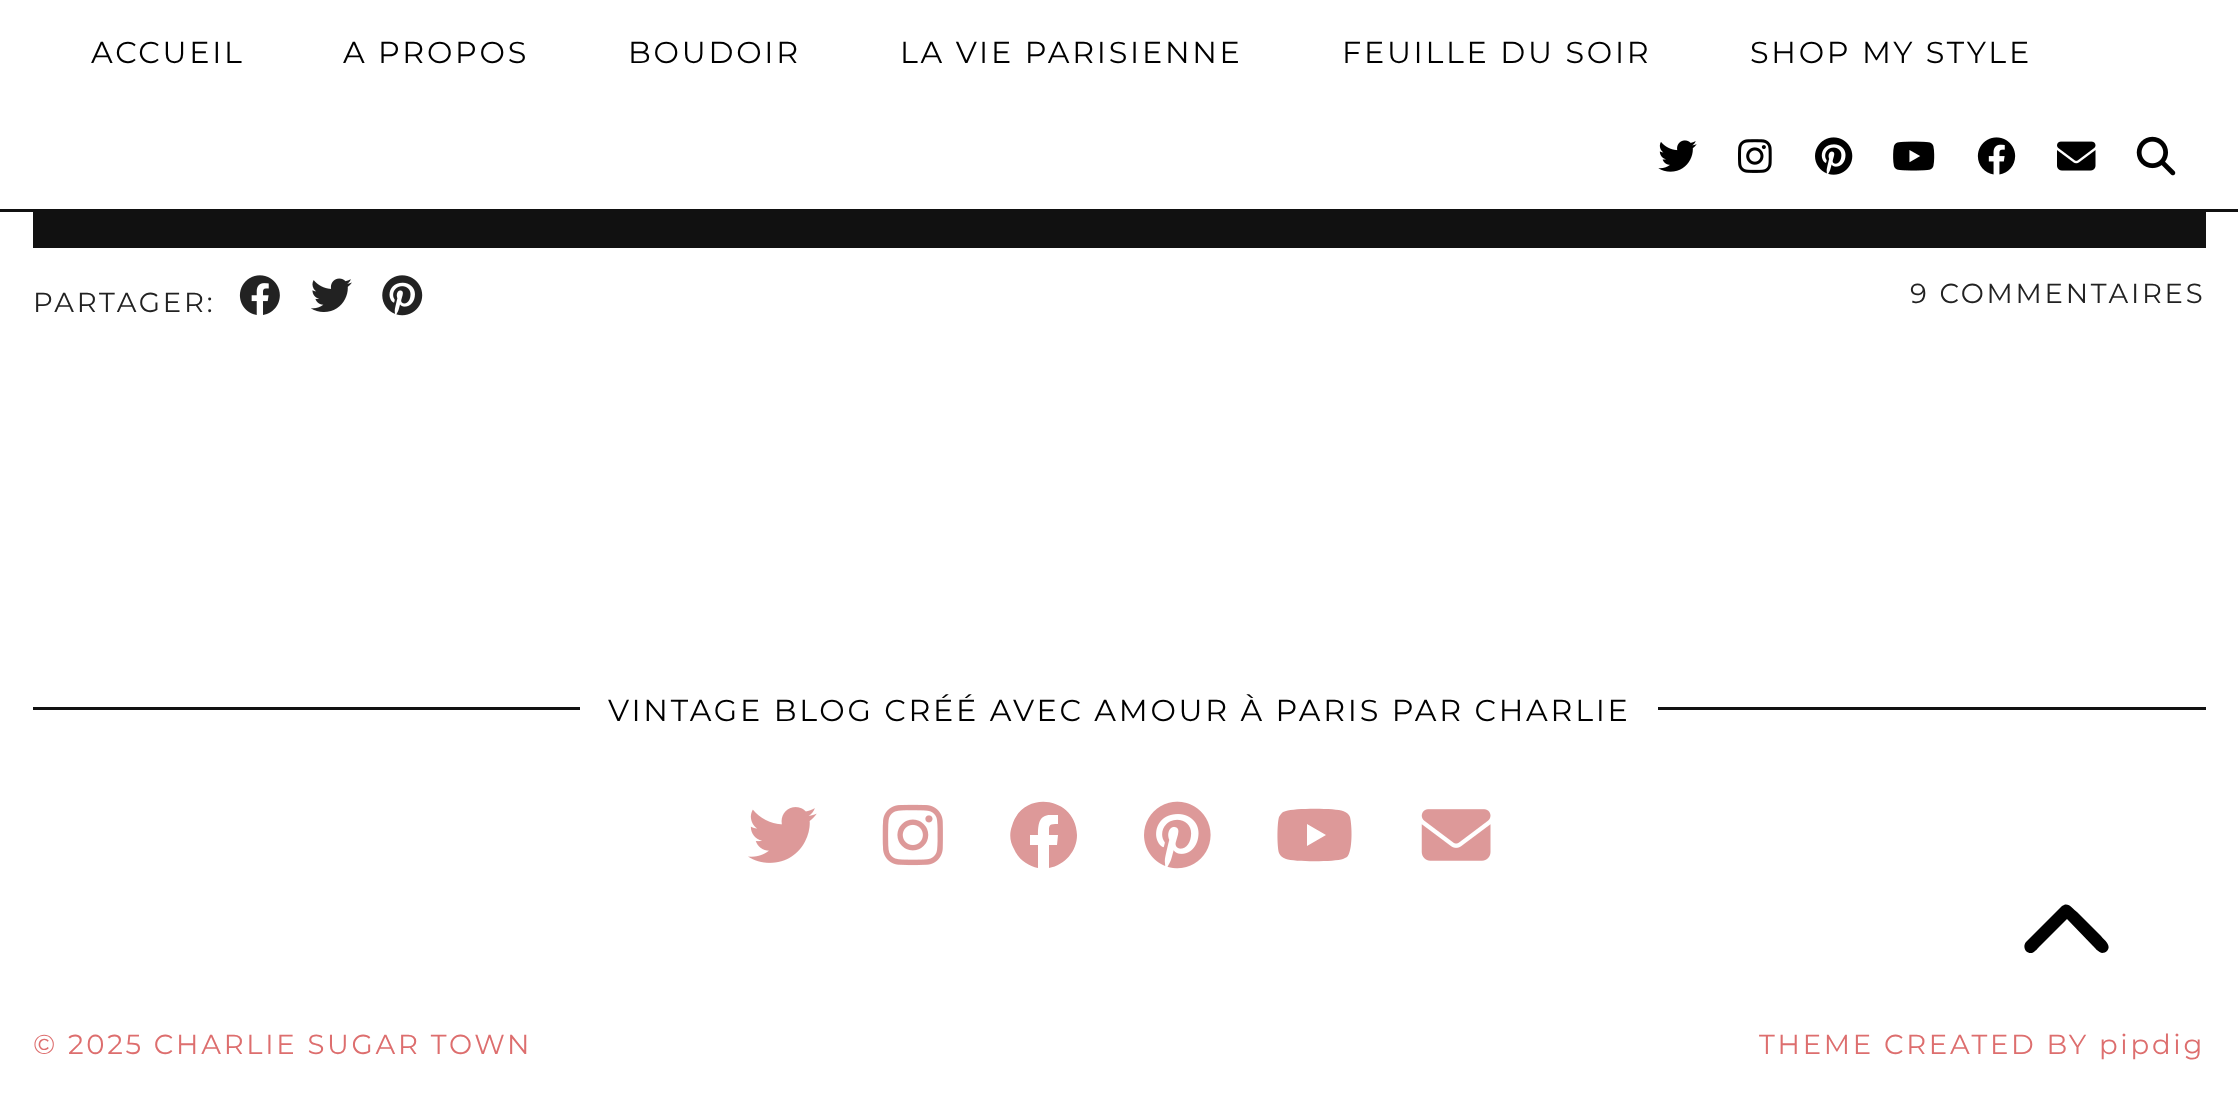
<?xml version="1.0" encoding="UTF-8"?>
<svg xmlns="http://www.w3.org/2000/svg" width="2238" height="1103">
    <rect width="100%" height="100%" fill="#FFFFFF"/>
    <rect x="0" y="209" width="2238" height="3" fill="#111111"/>
    <text x="91" y="63" font-family="Montserrat" font-size="30.25" font-weight="100" letter-spacing="2.75" fill="#000000">ACCUEIL</text>
    <text x="343" y="63" font-family="Montserrat" font-size="30.25" font-weight="100" letter-spacing="2.75" fill="#000000">A PROPOS</text>
    <text x="628" y="63" font-family="Montserrat" font-size="30.25" font-weight="100" letter-spacing="2.75" fill="#000000">BOUDOIR</text>
    <text x="900" y="63" font-family="Montserrat" font-size="30.25" font-weight="100" letter-spacing="2.75" fill="#000000">LA VIE PARISIENNE</text>
    <text x="1342" y="63" font-family="Montserrat" font-size="30.25" font-weight="100" letter-spacing="2.75" fill="#000000">FEUILLE DU SOIR</text>
    <text x="1750" y="63" font-family="Montserrat" font-size="30.25" font-weight="100" letter-spacing="2.75" fill="#000000">SHOP MY STYLE</text>
    <image x="1658" y="140" width="39" height="32" href="img_01.png"/>
    <image x="1738" y="139" width="34" height="34" href="img_02.png"/>
    <image x="1815" y="137" width="38" height="38" href="img_03.png"/>
    <image x="1893" y="141" width="42" height="30" href="img_04.png"/>
    <image x="1977" y="137" width="39" height="38" href="img_05.png"/>
    <image x="2057" y="141" width="39" height="30" href="img_06.png"/>
    <image x="2136" y="136" width="40" height="40" href="img_07.png"/>
    <rect x="33" y="212" width="2173" height="36" fill="#111111"/>
    <text x="33" y="312" font-family="Montserrat" font-size="27.5" font-weight="100" letter-spacing="2.75" fill="#222222">PARTAGER:</text>
    <image x="239" y="275" width="41" height="40" href="img_08.png"/>
    <image x="311" y="278" width="41" height="34" href="img_09.png"/>
    <image x="382" y="275" width="41" height="41" href="img_10.png"/>
    <text x="1910" y="303" font-family="Montserrat" font-size="27.5" font-weight="100" letter-spacing="2.75" fill="#222222">9 COMMENTAIRES</text>
    <rect x="33" y="707" width="2173" height="3" fill="#111111"/>
    <rect x="580" y="707" width="1078" height="3" fill="#FFFFFF"/>
    <text x="608" y="721" font-family="Montserrat" font-size="30.25" font-weight="100" letter-spacing="2.75" fill="#000000">VINTAGE BLOG CRÉÉ AVEC AMOUR À PARIS PAR CHARLIE</text>
    <image x="748" y="807" width="69" height="56" href="img_11.png"/>
    <image x="882" y="804" width="61" height="62" href="img_12.png"/>
    <path d="M 1077 835 C 1076 796 1022 789 1012 826 C 1009 834 1010 842 1014 849 C 1018 859 1028 866 1038 868 V 845 H 1030 V 835 H 1038 C 1038 824 1039 814 1052 815 H 1058 V 824 C 1048 824 1049 825 1049 835 H 1058 L 1057 845 H 1049 V 868 C 1065 865 1077 851 1077 835 Z" fill="#DD9999"/>
    <image x="1144" y="801" width="67" height="68" href="img_13.png"/>
    <path d="M 1350 817 C 1349 814 1346 812 1343 811 C 1336 808 1294 808 1286 811 L 1283 812 C 1281 814 1280 815 1279 817 C 1277 824 1277 846 1279 853 C 1280 856 1283 858 1286 859 C 1294 862 1335 862 1343 859 L 1347 857 C 1353 851 1352 825 1350 817 Z M 1307 846 V 824 L 1326 835 Z" fill="#DD9999"/>
    <image x="1421" y="809" width="70" height="52" href="img_14.png"/>
    <path d="M 2062 906 C 2068 901 2073 909 2077 912 L 2101 936 C 2104 940 2112 945 2107 951 C 2106 952 2104 953 2102 953 C 2098 952 2095 948 2093 946 L 2067 919 L 2040 946 C 2038 948 2035 952 2032 953 C 2026 954 2022 947 2026 942 Z" fill="#000000"/>
    <text x="33" y="1054" font-family="Montserrat" font-size="27.5" font-weight="100" letter-spacing="2.75" fill="#DD6E6E">© 2025 CHARLIE SUGAR TOWN</text>
    <text x="1759" y="1054" font-family="Montserrat" font-size="27.5" font-weight="100" letter-spacing="2.75" fill="#DD6E6E">THEME CREATED BY pipdig</text>
</svg>
